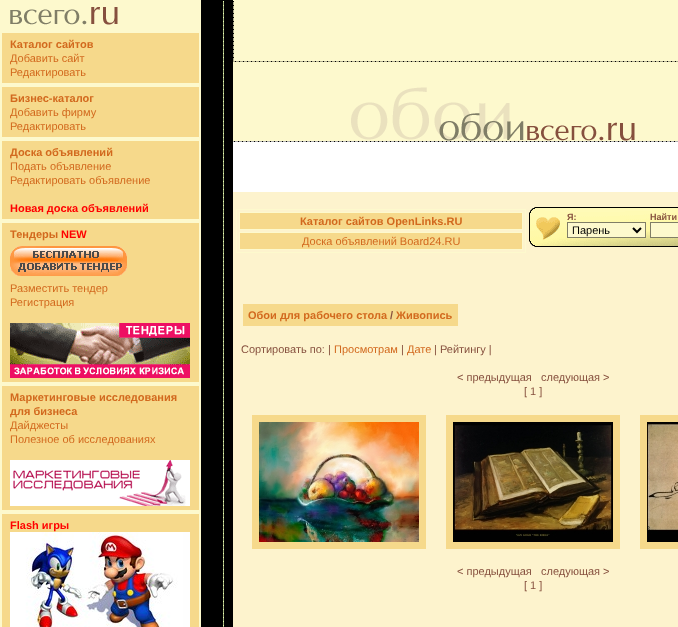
<?xml version="1.0" encoding="UTF-8"?>
<svg xmlns="http://www.w3.org/2000/svg" width="678" height="627">
    <rect width="100%" height="100%" fill="#FDF9CD"/>
    <rect x="201" y="0" width="32" height="627" fill="#000000"/>
    <image x="223" y="1" width="1" height="626" href="img_01.png"/>
    <image x="233" y="1" width="1" height="60" href="img_02.png"/>
    <image x="233" y="61" width="445" height="1" href="img_03.png"/>
    <image x="10" y="7" width="108" height="18" href="img_04.png"/>
    <rect x="2" y="33" width="197" height="50" fill="#F6D98B"/>
    <text x="10" y="48" font-family="Liberation Sans" font-size="11" font-weight="700" fill="#D2691E">Каталог сайтов</text>
    <text font-family="Liberation Sans" font-size="11" fill="#D2691E">
        <tspan x="10" y="62">Добавить сайт</tspan>
        <tspan x="10" y="76">Редактировать</tspan>
    </text>
    <rect x="2" y="87" width="197" height="50" fill="#F6D98B"/>
    <text x="10" y="102" font-family="Liberation Sans" font-size="11" font-weight="700" fill="#D2691E">Бизнес-каталог</text>
    <text font-family="Liberation Sans" font-size="11" fill="#D2691E">
        <tspan x="10" y="116">Добавить фирму</tspan>
        <tspan x="10" y="130">Редактировать</tspan>
    </text>
    <rect x="2" y="141" width="197" height="78" fill="#F6D98B"/>
    <text x="10" y="156" font-family="Liberation Sans" font-size="11" font-weight="700" fill="#D2691E">Доска объявлений</text>
    <text font-family="Liberation Sans" font-size="11" fill="#D2691E">
        <tspan x="10" y="170">Подать объявление</tspan>
        <tspan x="10" y="184">Редактировать объявление</tspan>
    </text>
    <text x="10" y="212" font-family="Liberation Sans" font-size="11" font-weight="700" fill="#FF0000">Новая доска объявлений</text>
    <rect x="2" y="223" width="197" height="159" fill="#F6D98B"/>
    <text x="10" y="238" font-family="Liberation Sans" font-size="11" font-weight="700" fill="#D2691E">Тендеры</text>
    <text x="61" y="238" font-family="Liberation Sans" font-size="11" font-weight="700" fill="#FF0000">NEW</text>
    <image x="10" y="246" width="117" height="30" href="img_05.png"/>
    <text font-family="Liberation Sans" font-size="11" fill="#D2691E">
        <tspan x="10" y="292">Разместить тендер</tspan>
        <tspan x="10" y="306">Регистрация</tspan>
    </text>
    <image x="10" y="323" width="180" height="55" href="img_06.png"/>
    <rect x="2" y="386" width="197" height="124" fill="#F6D98B"/>
    <text font-family="Liberation Sans" font-size="11" font-weight="700" fill="#D2691E">
        <tspan x="10" y="401">Маркетинговые исследования</tspan>
        <tspan x="10" y="415">для бизнеса</tspan>
    </text>
    <text font-family="Liberation Sans" font-size="11" fill="#D2691E">
        <tspan x="10" y="429">Дайджесты</tspan>
        <tspan x="10" y="443">Полезное об исследованиях</tspan>
    </text>
    <image x="10" y="460" width="180" height="46" href="img_07.png"/>
    <rect x="2" y="514" width="197" height="113" fill="#F6D98B"/>
    <text x="10" y="529" font-family="Liberation Sans" font-size="11" font-weight="700" fill="#FF0000">Flash игры</text>
    <image x="10" y="532" width="180" height="95" href="img_08.png"/>
    <image x="233" y="141" width="445" height="1" href="img_09.png"/>
    <image x="351" y="87" width="284" height="54" href="img_10.png"/>
    <rect x="233" y="192" width="445" height="435" fill="#FDF3CD"/>
    <rect x="233" y="142" width="445" height="50" fill="#FFFFFF"/>
    <rect x="236.5" y="209.5" width="289" height="43" fill="none" stroke="#FDF9CD"/>
    <rect x="239.5" y="212.5" width="283" height="17" fill="#F6D98B" stroke="#FDF9CD"/>
    <text x="300" y="225" font-family="Liberation Sans" font-size="11" font-weight="700" fill="#D2691E">Каталог сайтов OpenLinks.RU</text>
    <rect x="239.5" y="232.5" width="283" height="17" fill="#F6D98B" stroke="#FDF9CD"/>
    <text x="302" y="245" font-family="Liberation Sans" font-size="11" fill="#D2691E">Доска объявлений Board24.RU</text>
    <image x="529" y="207" width="149" height="40" href="img_11.png"/>
    <text x="567" y="220" font-family="Liberation Sans" font-size="9" font-weight="700" fill="#86503E">Я:</text>
    <rect x="567.5" y="222.5" width="78" height="15" fill="#FDF9CD" stroke="#807E67"/>
    <path d="M 633 228 L 637 232 L 641 228" fill="none" stroke="#000000" stroke-width="2"/>
    <text x="572" y="234" font-family="Liberation Sans" font-size="11" fill="#000000">Парень</text>
    <text x="650" y="220" font-family="Liberation Sans" font-size="9" font-weight="700" fill="#86503E">Найти</text>
    <rect x="650.5" y="222.5" width="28" height="15" fill="#FDF9CD" stroke="#807E67"/>
    <rect x="243" y="304" width="215" height="22" fill="#F6D98B"/>
    <text x="248" y="319" font-family="Liberation Sans" font-size="11" font-weight="700" fill="#D2691E">Обои для рабочего стола</text>
    <text x="390" y="319" font-family="Liberation Sans" font-size="11" font-weight="700" fill="#86503E">/</text>
    <text x="396" y="319" font-family="Liberation Sans" font-size="11" font-weight="700" fill="#D2691E">Живопись</text>
    <text x="241" y="353" font-family="Liberation Sans" font-size="11" fill="#86503E">Сортировать по: |</text>
    <text x="334" y="353" font-family="Liberation Sans" font-size="11" fill="#D2691E">Просмотрам</text>
    <text x="401" y="353" font-family="Liberation Sans" font-size="11" fill="#86503E">|</text>
    <text x="407" y="353" font-family="Liberation Sans" font-size="11" fill="#D2691E">Дате</text>
    <text x="434" y="353" font-family="Liberation Sans" font-size="11" fill="#86503E">| Рейтингу |</text>
    <text x="457" y="381" font-family="Liberation Sans" font-size="11" fill="#86503E" xml:space="preserve">&lt; предыдущая   следующая &gt;</text>
    <text x="524" y="395" font-family="Liberation Sans" font-size="11" fill="#86503E">[ 1 ]</text>
    <rect x="252" y="415" width="174" height="134" fill="#F6D98B"/>
    <image x="259" y="422" width="160" height="120" href="img_12.png"/>
    <rect x="446" y="415" width="174" height="134" fill="#F6D98B"/>
    <image x="453" y="422" width="160" height="120" href="img_13.png"/>
    <rect x="640" y="415" width="38" height="134" fill="#F6D98B"/>
    <image x="647" y="422" width="31" height="120" href="img_14.png"/>
    <text x="457" y="575" font-family="Liberation Sans" font-size="11" fill="#86503E" xml:space="preserve">&lt; предыдущая   следующая &gt;</text>
    <text x="524" y="589" font-family="Liberation Sans" font-size="11" fill="#86503E">[ 1 ]</text>
</svg>
